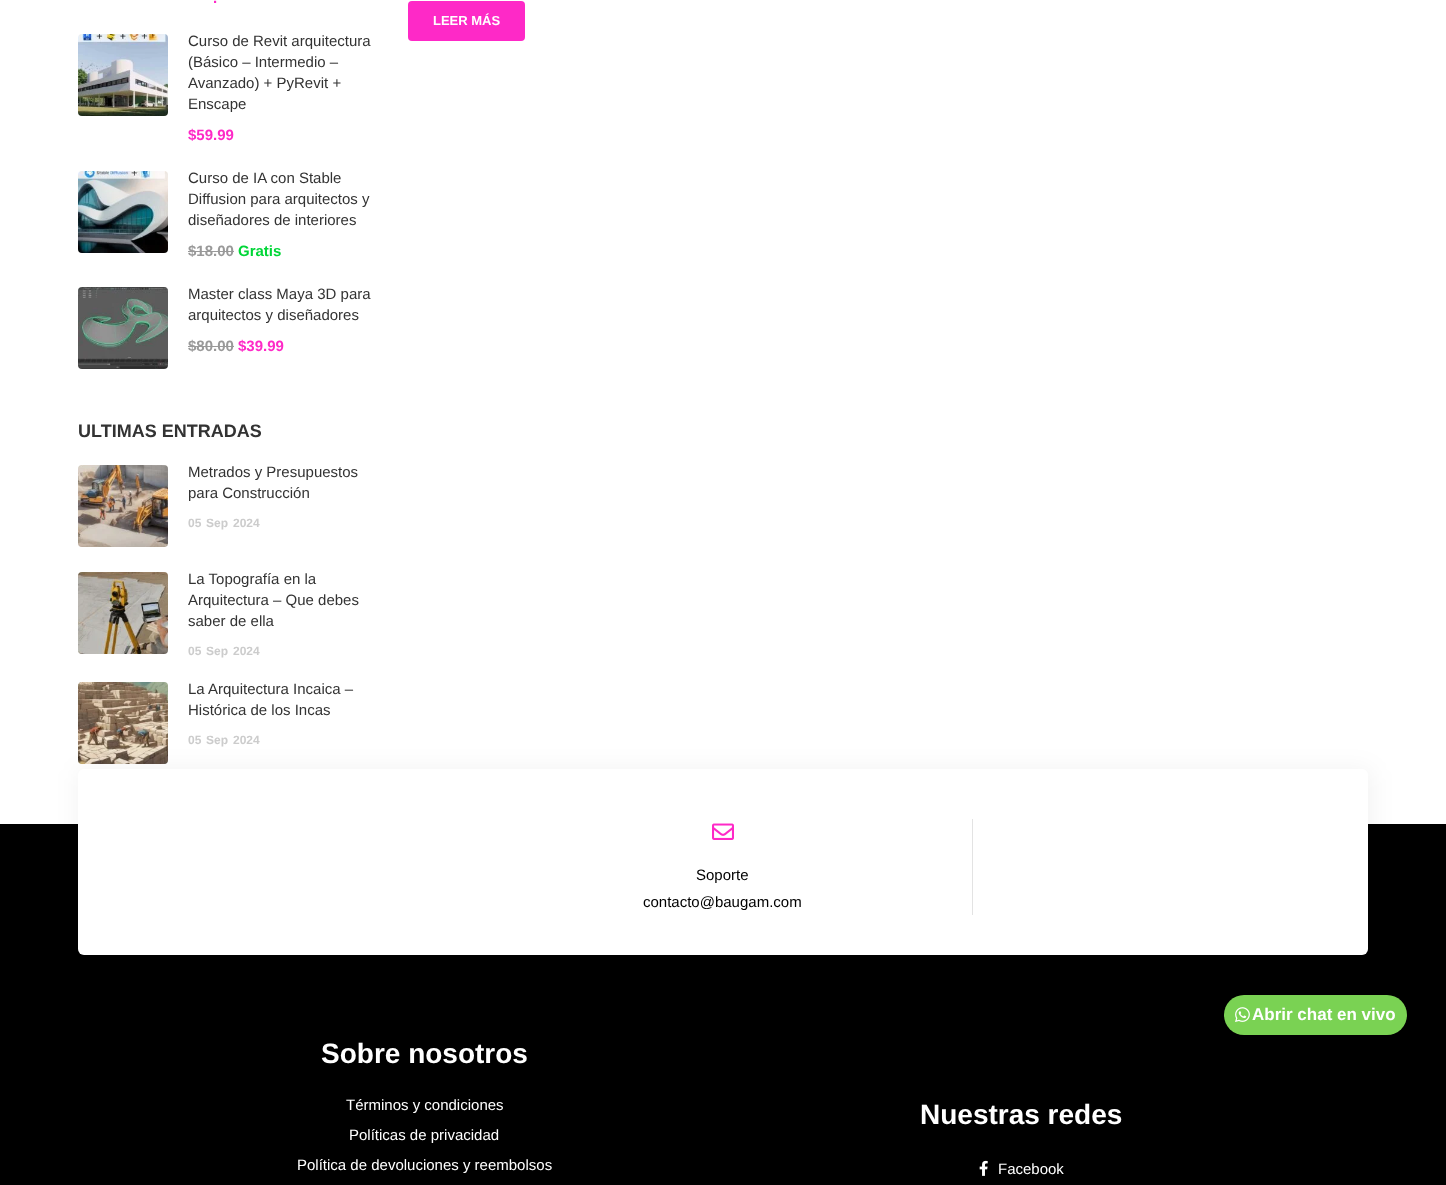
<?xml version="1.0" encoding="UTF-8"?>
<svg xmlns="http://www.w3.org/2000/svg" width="1446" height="1185">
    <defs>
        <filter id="blur1" x="-50%" y="-200%" width="200%" height="500%"><feGaussianBlur stdDeviation="12.5"/></filter>
    </defs>
    <rect width="100%" height="100%" fill="#FFFFFF"/>
    <text x="213" y="3" font-family="Liberation Sans" font-size="15" font-weight="700" fill="#FE29C7">.</text>
    <image x="78" y="34" width="90" height="82" href="img_01.png"/>
    <text font-family="Liberation Sans" font-size="15" fill="#333333">
        <tspan x="188" y="46">Curso de Revit arquitectura</tspan>
        <tspan x="188" y="67">(Básico – Intermedio –</tspan>
        <tspan x="188" y="88">Avanzado) + PyRevit +</tspan>
        <tspan x="188" y="109">Enscape</tspan>
    </text>
    <text x="188" y="140" font-family="Liberation Sans" font-size="15" font-weight="700" fill="#FE29C7">$59.99</text>
    <image x="78" y="171" width="90" height="82" href="img_02.png"/>
    <text font-family="Liberation Sans" font-size="15" fill="#333333">
        <tspan x="188" y="183">Curso de IA con Stable</tspan>
        <tspan x="188" y="204">Diffusion para arquitectos y</tspan>
        <tspan x="188" y="225">diseñadores de interiores</tspan>
    </text>
    <text x="188" y="256" font-family="Liberation Sans" font-size="15" font-weight="700" fill="#999999">$18.00</text>
    <rect x="188" y="251" width="46" height="1" fill="#999999"/>
    <text x="238" y="256" font-family="Liberation Sans" font-size="15" font-weight="700" fill="#00D637">Gratis</text>
    <image x="78" y="287" width="90" height="82" href="img_03.png"/>
    <text font-family="Liberation Sans" font-size="15" fill="#333333">
        <tspan x="188" y="299">Master class Maya 3D para</tspan>
        <tspan x="188" y="320">arquitectos y diseñadores</tspan>
    </text>
    <text x="188" y="351" font-family="Liberation Sans" font-size="15" font-weight="700" fill="#999999">$80.00</text>
    <rect x="188" y="346" width="46" height="1" fill="#999999"/>
    <text x="238" y="351" font-family="Liberation Sans" font-size="15" font-weight="700" fill="#FE29C7">$39.99</text>
    <text x="78" y="437" font-family="Liberation Sans" font-size="18" font-weight="700" fill="#333333">ULTIMAS ENTRADAS</text>
    <image x="78" y="465" width="90" height="82" href="img_04.png"/>
    <text font-family="Liberation Sans" font-size="15" fill="#333333">
        <tspan x="188" y="477">Metrados y Presupuestos</tspan>
        <tspan x="188" y="498">para Construcción</tspan>
    </text>
    <text x="188" y="527" font-family="Liberation Sans" font-size="12" font-weight="700" fill="#CCCCCC">05</text>
    <text x="206" y="527" font-family="Liberation Sans" font-size="12" font-weight="700" fill="#CCCCCC">Sep</text>
    <text x="233" y="527" font-family="Liberation Sans" font-size="12" font-weight="700" fill="#CCCCCC">2024</text>
    <image x="78" y="572" width="90" height="82" href="img_05.png"/>
    <text font-family="Liberation Sans" font-size="15" fill="#333333">
        <tspan x="188" y="584">La Topografía en la</tspan>
        <tspan x="188" y="605">Arquitectura – Que debes</tspan>
        <tspan x="188" y="626">saber de ella</tspan>
    </text>
    <text x="188" y="655" font-family="Liberation Sans" font-size="12" font-weight="700" fill="#CCCCCC">05</text>
    <text x="206" y="655" font-family="Liberation Sans" font-size="12" font-weight="700" fill="#CCCCCC">Sep</text>
    <text x="233" y="655" font-family="Liberation Sans" font-size="12" font-weight="700" fill="#CCCCCC">2024</text>
    <image x="78" y="682" width="90" height="82" href="img_06.png"/>
    <text font-family="Liberation Sans" font-size="15" fill="#333333">
        <tspan x="188" y="694">La Arquitectura Incaica –</tspan>
        <tspan x="188" y="715">Histórica de los Incas</tspan>
    </text>
    <text x="188" y="744" font-family="Liberation Sans" font-size="12" font-weight="700" fill="#CCCCCC">05</text>
    <text x="206" y="744" font-family="Liberation Sans" font-size="12" font-weight="700" fill="#CCCCCC">Sep</text>
    <text x="233" y="744" font-family="Liberation Sans" font-size="12" font-weight="700" fill="#CCCCCC">2024</text>
    <rect x="408" y="1" width="117" height="40" rx="4" fill="#FE29C7"/>
    <text x="433" y="25" font-family="Liberation Sans" font-size="13" font-weight="700" fill="#FFFFFF">LEER MÁS</text>
    <rect x="0" y="824" width="1446" height="361" fill="#000000"/>
    <rect x="1224" y="995" width="183" height="40" rx="20" fill="#7AD253"/>
    <rect x="78" y="769" width="1294" height="190" rx="8" fill="#000000" fill-opacity="0.05" filter="url(#blur1)"/>
    <rect x="78" y="769" width="1290" height="186" rx="6" fill="#FFFFFF"/>
    <rect x="972" y="819" width="1" height="96" fill="#E3E3E3"/>
    <image x="712" y="823" width="22" height="17" href="img_07.png"/>
    <text x="696" y="880" font-family="Liberation Sans" font-size="15" fill="#000000">Soporte</text>
    <text x="643" y="907" font-family="Liberation Sans" font-size="15" fill="#000000">contacto@baugam.com</text>
    <image x="1235" y="1007" width="15" height="15" href="img_08.png"/>
    <text x="1252" y="1020" font-family="Liberation Sans" font-size="17" font-weight="700" fill="#FFFFFF">Abrir chat en vivo</text>
    <text x="321" y="1063" font-family="Liberation Sans" font-size="28" font-weight="700" fill="#FFFFFF">Sobre nosotros</text>
    <text x="346" y="1110" font-family="Liberation Sans" font-size="15" fill="#FFFFFF">Términos y condiciones</text>
    <text x="349" y="1140" font-family="Liberation Sans" font-size="15" fill="#FFFFFF">Políticas de privacidad</text>
    <text x="297" y="1170" font-family="Liberation Sans" font-size="15" fill="#FFFFFF">Política de devoluciones y reembolsos</text>
    <text x="920" y="1124" font-family="Liberation Sans" font-size="28" font-weight="700" fill="#FFFFFF">Nuestras redes</text>
    <image x="979" y="1160" width="9" height="16" href="img_09.png"/>
    <text x="998" y="1174" font-family="Liberation Sans" font-size="15" fill="#FFFFFF">Facebook</text>
</svg>
